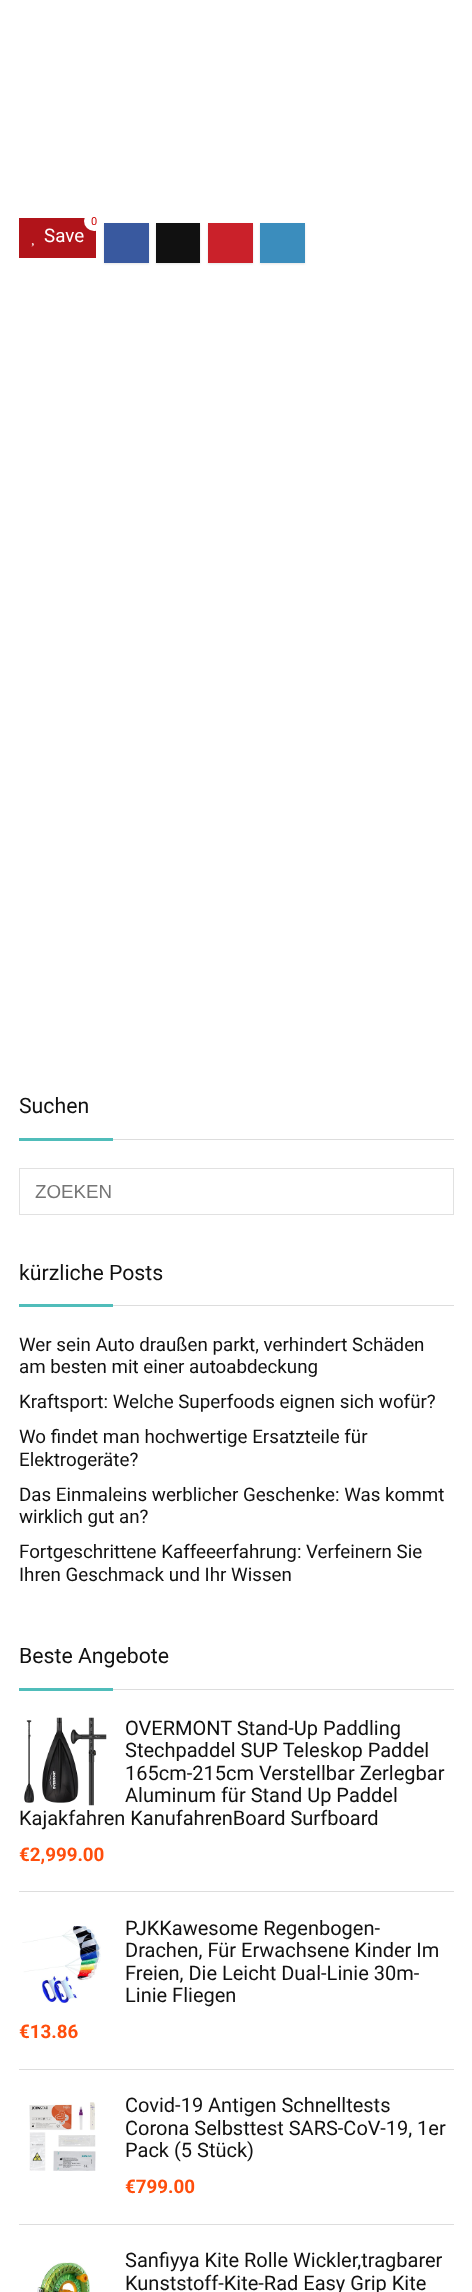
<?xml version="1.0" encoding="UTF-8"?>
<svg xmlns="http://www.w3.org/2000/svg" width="472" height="2292">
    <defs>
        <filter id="blur1" x="-50%" y="-200%" width="200%" height="500%"><feGaussianBlur stdDeviation="1"/></filter>
    </defs>
    <rect width="100%" height="100%" fill="#FFFFFF"/>
    <rect x="19" y="218" width="77" height="40" fill="#B1141A"/>
    <rect x="84" y="211" width="21" height="20" rx="10" fill="#FFFFFF"/>
    <text x="91" y="225" font-family="Roboto" font-size="11" fill="#CC0000">0</text>
    <text x="44" y="242" font-family="Roboto" font-size="18.75" fill="#FFFFFF">Save</text>
    <image x="31" y="243" width="3" height="4" href="img_01.png"/>
    <rect x="104" y="224" width="45" height="40" fill="#E4E4E4" filter="url(#blur1)"/>
    <rect x="104" y="223" width="45" height="40" fill="#39599F"/>
    <rect x="156" y="224" width="44" height="40" fill="#E4E4E4" filter="url(#blur1)"/>
    <rect x="156" y="223" width="44" height="40" fill="#111111"/>
    <rect x="208" y="224" width="45" height="40" fill="#E4E4E4" filter="url(#blur1)"/>
    <rect x="208" y="223" width="45" height="40" fill="#CA212A"/>
    <rect x="260" y="224" width="45" height="40" fill="#E4E4E4" filter="url(#blur1)"/>
    <rect x="260" y="223" width="45" height="40" fill="#3B8DBD"/>
    <rect x="113" y="1139" width="341" height="1" fill="#DDDDDD"/>
    <text x="19" y="1113" font-family="Roboto" font-size="21.25" fill="#111111">Suchen</text>
    <rect x="19" y="1138" width="94" height="3" fill="#50BDBA"/>
    <rect x="19.5" y="1168.5" width="434" height="46" fill="none" stroke="#E1E1E1"/>
    <text x="35" y="1198" font-family="Liberation Sans" font-size="18.75" fill="#757575">ZOEKEN</text>
    <rect x="113" y="1305" width="341" height="1" fill="#DDDDDD"/>
    <text x="19" y="1280" font-family="Roboto" font-size="21.25" fill="#111111">kürzliche Posts</text>
    <rect x="19" y="1304" width="94" height="3" fill="#50BDBA"/>
    <text font-family="Roboto" font-size="18.75" fill="#111111">
        <tspan x="19" y="1351">Wer sein Auto draußen parkt, verhindert Schäden</tspan>
        <tspan x="19" y="1373">am besten mit einer autoabdeckung</tspan>
        <tspan x="19" y="1408">Kraftsport: Welche Superfoods eignen sich wofür?</tspan>
        <tspan x="19" y="1443">Wo findet man hochwertige Ersatzteile für</tspan>
        <tspan x="19" y="1466">Elektrogeräte?</tspan>
        <tspan x="19" y="1501">Das Einmaleins werblicher Geschenke: Was kommt</tspan>
        <tspan x="19" y="1523">wirklich gut an?</tspan>
        <tspan x="19" y="1558">Fortgeschrittene Kaffeeerfahrung: Verfeinern Sie</tspan>
        <tspan x="19" y="1581">Ihren Geschmack und Ihr Wissen</tspan>
    </text>
    <rect x="113" y="1689" width="341" height="1" fill="#DDDDDD"/>
    <text x="19" y="1663" font-family="Roboto" font-size="21.25" fill="#111111">Beste Angebote</text>
    <rect x="19" y="1688" width="94" height="3" fill="#50BDBA"/>
    <rect x="19" y="1891" width="435" height="1" fill="#DDDDDD"/>
    <image x="24" y="1717" width="83" height="89" href="img_02.png"/>
    <text font-family="Roboto" font-size="20" fill="#111111">
        <tspan x="125" y="1735">OVERMONT Stand-Up Paddling</tspan>
        <tspan x="125" y="1757">Stechpaddel SUP Teleskop Paddel</tspan>
        <tspan x="125" y="1780">165cm-215cm Verstellbar Zerlegbar</tspan>
        <tspan x="125" y="1802">Aluminum für Stand Up Paddel</tspan>
    </text>
    <text x="19" y="1825" font-family="Roboto" font-size="20" fill="#111111">Kajakfahren KanufahrenBoard Surfboard</text>
    <text x="19" y="1861" font-family="Roboto" font-size="18.75" font-weight="700" fill="#FF4E0C">€2,999.00</text>
    <rect x="19" y="2069" width="435" height="1" fill="#DDDDDD"/>
    <image x="22" y="1926" width="79" height="78" href="img_03.png"/>
    <text font-family="Roboto" font-size="20" fill="#111111">
        <tspan x="125" y="1935">PJKKawesome Regenbogen-</tspan>
        <tspan x="125" y="1957">Drachen, Für Erwachsene Kinder Im</tspan>
        <tspan x="125" y="1980">Freien, Die Leicht Dual-Linie 30m-</tspan>
        <tspan x="125" y="2002">Linie Fliegen</tspan>
    </text>
    <text x="19" y="2038" font-family="Roboto" font-size="18.75" font-weight="700" fill="#FF4E0C">€13.86</text>
    <rect x="19" y="2224" width="435" height="1" fill="#DDDDDD"/>
    <image x="29" y="2102" width="67" height="69" href="img_04.png"/>
    <text font-family="Roboto" font-size="20" fill="#111111">
        <tspan x="125" y="2112">Covid-19 Antigen Schnelltests</tspan>
        <tspan x="125" y="2135">Corona Selbsttest SARS-CoV-19, 1er</tspan>
        <tspan x="125" y="2157">Pack (5 Stück)</tspan>
    </text>
    <text x="125" y="2193" font-family="Roboto" font-size="18.75" font-weight="700" fill="#FF4E0C">€799.00</text>
    <image x="37" y="2262" width="53" height="30" href="img_05.png"/>
    <text font-family="Roboto" font-size="20" fill="#111111">
        <tspan x="125" y="2267">Sanfiyya Kite Rolle Wickler,tragbarer</tspan>
        <tspan x="125" y="2290">Kunststoff-Kite-Rad Easy Grip Kite</tspan>
    </text>
</svg>
